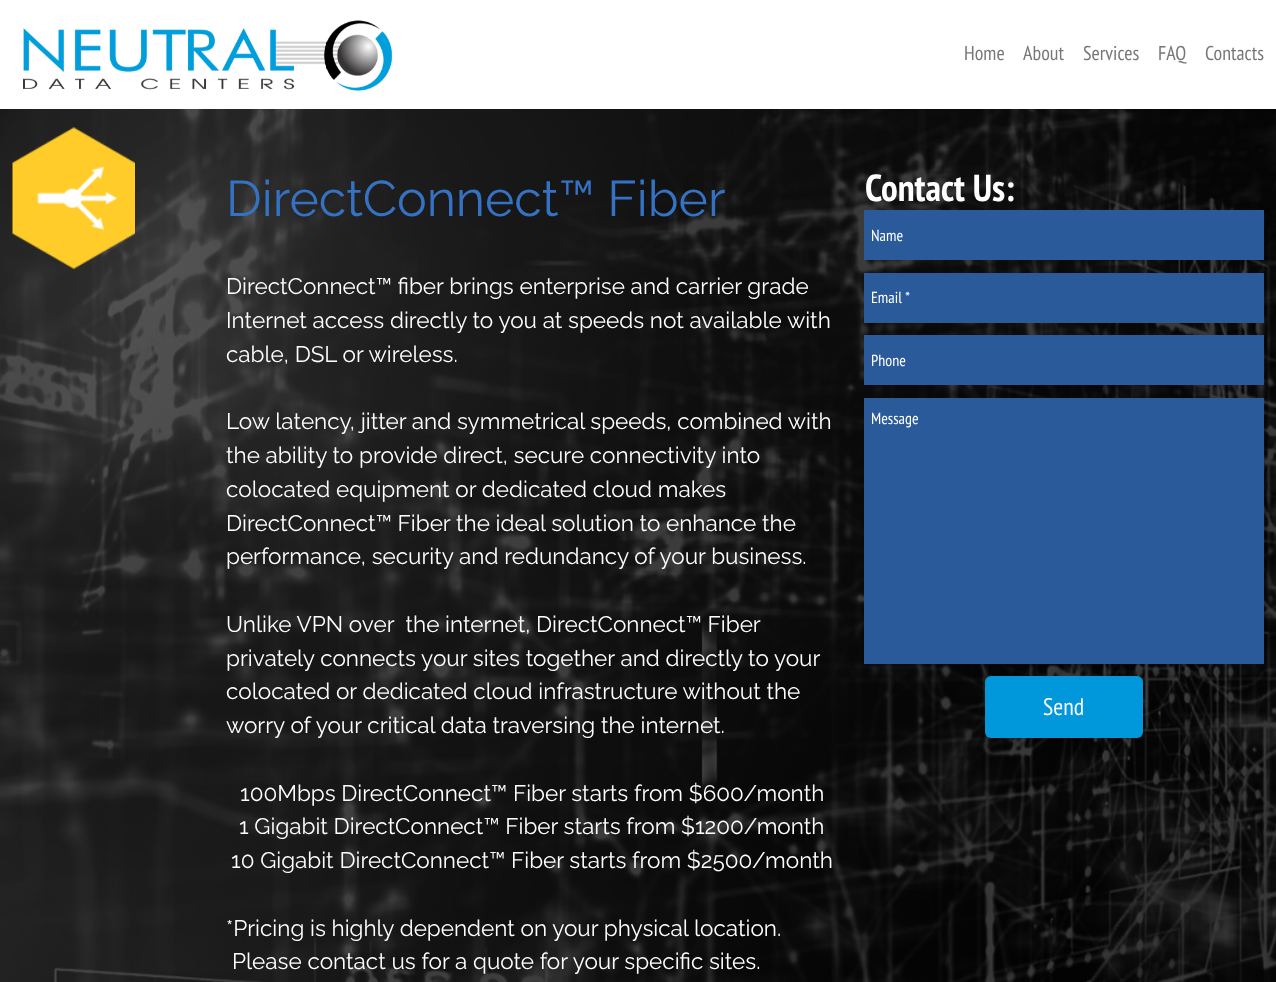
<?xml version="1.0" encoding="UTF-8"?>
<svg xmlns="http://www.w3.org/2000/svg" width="1276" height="982">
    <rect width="100%" height="100%" fill="#FFFFFF"/>
    <image x="23" y="20" width="370" height="71" href="img_01.png"/>
    <text x="964" y="60" font-family="PT Sans Narrow" font-size="20" fill="#777777">Home</text>
    <text x="1023" y="60" font-family="PT Sans Narrow" font-size="20" fill="#777777">About</text>
    <text x="1083" y="60" font-family="PT Sans Narrow" font-size="20" fill="#777777">Services</text>
    <text x="1158" y="60" font-family="PT Sans Narrow" font-size="20" fill="#777777">FAQ</text>
    <text x="1205" y="60" font-family="PT Sans Narrow" font-size="20" fill="#777777">Contacts</text>
    <image x="0" y="109" width="1276" height="873" href="img_02.png"/>
    <image x="12" y="127" width="123" height="142" href="img_03.png"/>
    <text x="226" y="216" font-family="Raleway" font-size="50" fill="#3672C4">DirectConnect™ Fiber</text>
    <text font-family="Raleway" font-size="22.5" fill="#FFFFFF">
        <tspan x="226" y="294">DirectConnect™ fiber brings enterprise and carrier grade</tspan>
        <tspan x="226" y="328">Internet access directly to you at speeds not available with</tspan>
        <tspan x="226" y="362">cable, DSL or wireless.</tspan>
    </text>
    <text font-family="Raleway" font-size="22.5" fill="#FFFFFF">
        <tspan x="226" y="429">Low latency, jitter and symmetrical speeds, combined with</tspan>
        <tspan x="226" y="463">the ability to provide direct, secure connectivity into</tspan>
        <tspan x="226" y="497">colocated equipment or dedicated cloud makes</tspan>
        <tspan x="226" y="531">DirectConnect™ Fiber the ideal solution to enhance the</tspan>
        <tspan x="226" y="564">performance, security and redundancy of your business.</tspan>
    </text>
    <text font-family="Raleway" font-size="22.5" fill="#FFFFFF" xml:space="preserve"><tspan x="226" y="632">Unlike VPN over  the internet, DirectConnect™ Fiber</tspan><tspan x="226" y="666">privately connects your sites together and directly to your</tspan><tspan x="226" y="699">colocated or dedicated cloud infrastructure without the</tspan><tspan x="226" y="733">worry of your critical data traversing the internet.</tspan></text>
    <text x="240" y="801" font-family="Raleway" font-size="22.5" fill="#FFFFFF">100Mbps DirectConnect™ Fiber starts from $600/month</text>
    <text x="239" y="834" font-family="Raleway" font-size="22.5" fill="#FFFFFF">1 Gigabit DirectConnect™ Fiber starts from $1200/month</text>
    <text x="231" y="868" font-family="Raleway" font-size="22.5" fill="#FFFFFF">10 Gigabit DirectConnect™ Fiber starts from $2500/month</text>
    <text x="226" y="936" font-family="Raleway" font-size="22.5" fill="#FFFFFF">*Pricing is highly dependent on your physical location.</text>
    <text x="232" y="969" font-family="Raleway" font-size="22.5" fill="#FFFFFF">Please contact us for a quote for your specific sites.</text>
    <text x="865" y="201" font-family="PT Sans Narrow" font-size="37.5" font-weight="700" fill="#FFFFFF">Contact Us:</text>
    <rect x="864" y="210" width="400" height="50" fill="#2B5A9B"/>
    <text x="871" y="241" font-family="PT Sans Narrow" font-size="16" fill="#FFFFFF">Name</text>
    <rect x="864" y="273" width="400" height="50" fill="#2B5A9B"/>
    <text x="871" y="303" font-family="PT Sans Narrow" font-size="16" fill="#FFFFFF">Email *</text>
    <rect x="864" y="335" width="400" height="50" fill="#2B5A9B"/>
    <text x="871" y="366" font-family="PT Sans Narrow" font-size="16" fill="#FFFFFF">Phone</text>
    <rect x="864" y="398" width="400" height="266" fill="#2B5A9B"/>
    <text x="871" y="424" font-family="PT Sans Narrow" font-size="16" fill="#FFFFFF">Message</text>
    <rect x="985" y="676" width="158" height="62" rx="6" fill="#0098DA"/>
    <text x="1043" y="715" font-family="PT Sans Narrow" font-size="24" fill="#FFFFFF">Send</text>
</svg>
